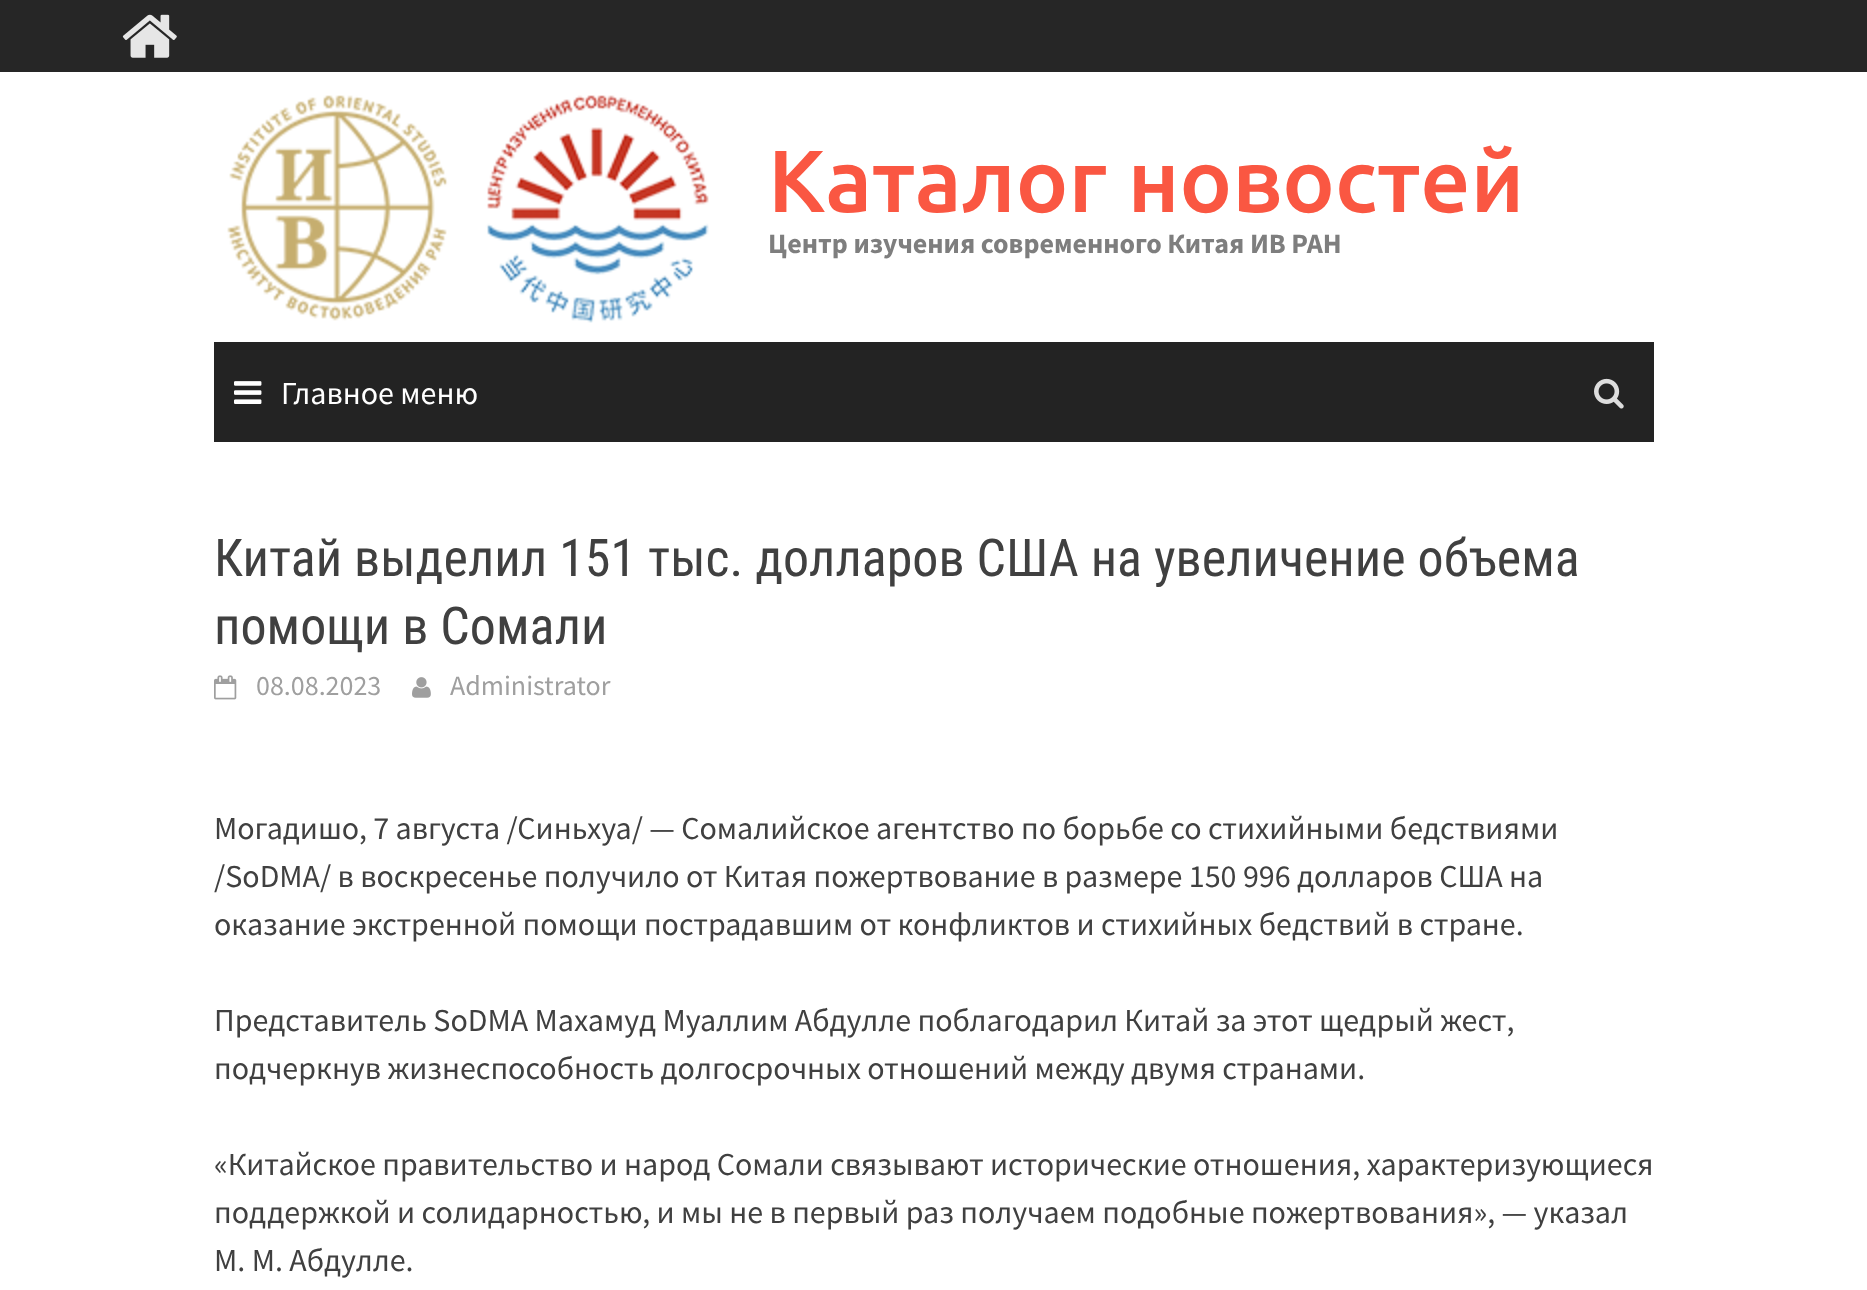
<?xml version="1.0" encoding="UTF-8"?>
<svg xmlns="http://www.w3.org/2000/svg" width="1867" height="1290">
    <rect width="100%" height="100%" fill="#FFFFFF"/>
    <rect x="0" y="0" width="1867" height="72" fill="#262626"/>
    <image x="122" y="14" width="55" height="44" href="img_01.png"/>
    <image x="227" y="95" width="482" height="228" href="img_02.png"/>
    <text x="768" y="212" font-family="Ubuntu" font-size="88" font-weight="500" fill="#FA5742">Каталог новостей</text>
    <text x="768" y="253" font-family="Source Sans Pro" font-size="28" font-weight="700" fill="#7E7E7E">Центр изучения современного Китая ИВ РАН</text>
    <rect x="214" y="342" width="1440" height="100" fill="#232323"/>
    <image x="234" y="381" width="28" height="23" href="img_03.png"/>
    <text x="281" y="404" font-family="Source Sans Pro" font-size="32" fill="#FFFFFF">Главное меню</text>
    <image x="1594" y="378" width="30" height="31" href="img_04.png"/>
    <text font-family="Roboto Condensed" font-size="52" fill="#404040">
        <tspan x="214" y="576">Китай выделил 151 тыс. долларов США на увеличение объема</tspan>
        <tspan x="214" y="644">помощи в Сомали</tspan>
    </text>
    <image x="214" y="675" width="23" height="25" href="img_05.png"/>
    <text x="256" y="695" font-family="Source Sans Pro" font-size="28" fill="#9F9F9F">08.08.2023</text>
    <image x="412" y="677" width="19" height="21" href="img_06.png"/>
    <text x="450" y="695" font-family="Source Sans Pro" font-size="28" fill="#9F9F9F">Administrator</text>
    <text font-family="Source Sans Pro" font-size="32" fill="#404040">
        <tspan x="214" y="839">Могадишо, 7 августа /Синьхуа/ — Сомалийское агентство по борьбе со стихийными бедствиями</tspan>
        <tspan x="214" y="887">/SoDMA/ в воскресенье получило от Китая пожертвование в размере 150 996 долларов США на</tspan>
        <tspan x="214" y="935">оказание экстренной помощи пострадавшим от конфликтов и стихийных бедствий в стране.</tspan>
    </text>
    <text font-family="Source Sans Pro" font-size="32" fill="#404040">
        <tspan x="214" y="1031">Представитель SoDMA Махамуд Муаллим Абдулле поблагодарил Китай за этот щедрый жест,</tspan>
        <tspan x="214" y="1079">подчеркнув жизнеспособность долгосрочных отношений между двумя странами.</tspan>
    </text>
    <text font-family="Source Sans Pro" font-size="32" fill="#404040">
        <tspan x="214" y="1175">«Китайское правительство и народ Сомали связывают исторические отношения, характеризующиеся</tspan>
        <tspan x="214" y="1223">поддержкой и солидарностью, и мы не в первый раз получаем подобные пожертвования», — указал</tspan>
        <tspan x="214" y="1271">М. М. Абдулле.</tspan>
    </text>
</svg>
